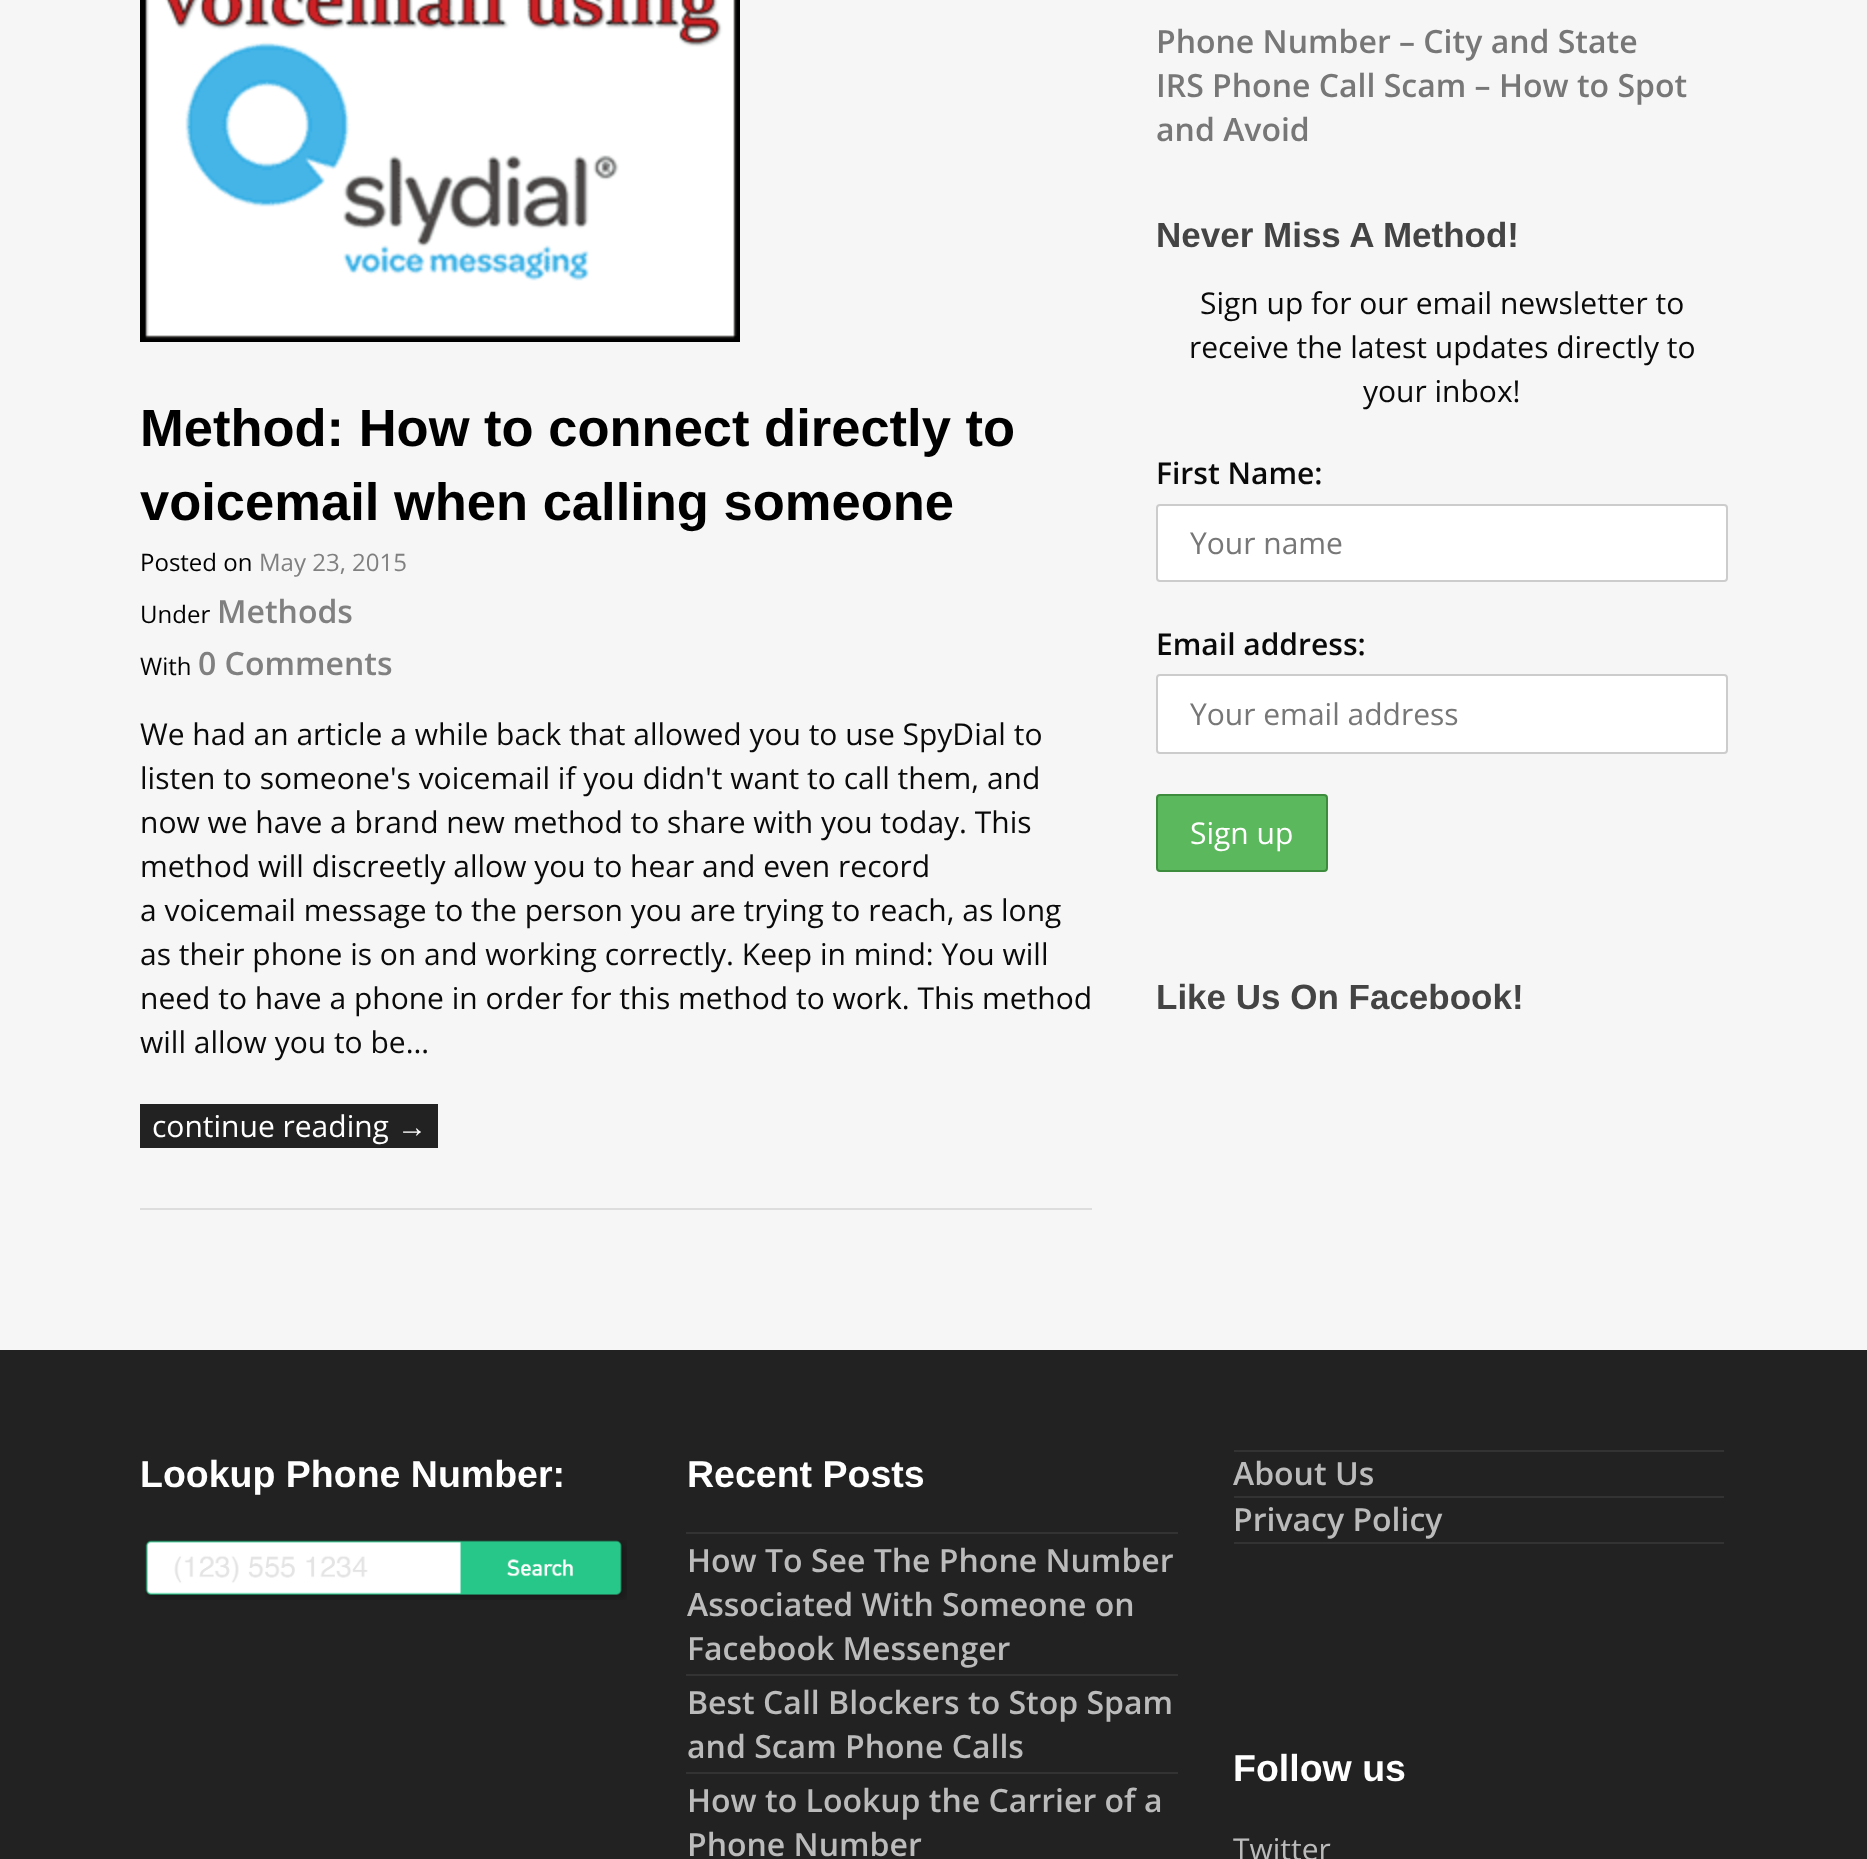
<?xml version="1.0" encoding="UTF-8"?>
<svg xmlns="http://www.w3.org/2000/svg" width="1867" height="1859">
    <rect width="100%" height="100%" fill="#F6F6F6"/>
    <rect x="140" y="1208" width="952" height="2" fill="#DDDDDD"/>
    <image x="140" y="0" width="600" height="342" href="img_01.png"/>
    <text font-family="Liberation Sans" font-size="52.5" font-weight="700" fill="#000000">
        <tspan x="140" y="446">Method: How to connect directly to</tspan>
        <tspan x="140" y="520">voicemail when calling someone</tspan>
    </text>
    <text x="140" y="571" font-family="Open Sans" font-size="24" fill="#000000">Posted on</text>
    <text x="259" y="571" font-family="Open Sans" font-size="24" fill="#808080">May 23, 2015</text>
    <text x="140" y="623" font-family="Open Sans" font-size="24" fill="#000000">Under</text>
    <text x="217" y="623" font-family="Open Sans" font-size="32" font-weight="600" fill="#808080">Methods</text>
    <text x="140" y="675" font-family="Open Sans" font-size="24" fill="#000000">With</text>
    <text x="198" y="675" font-family="Open Sans" font-size="32" font-weight="600" fill="#808080">0 Comments</text>
    <text font-family="Open Sans" font-size="30" fill="#0A0A0A">
        <tspan x="140" y="745">We had an article a while back that allowed you to use SpyDial to</tspan>
        <tspan x="140" y="789">listen to someone's voicemail if you didn't want to call them, and</tspan>
        <tspan x="140" y="833">now we have a brand new method to share with you today. This</tspan>
        <tspan x="140" y="877">method will discreetly allow you to hear and even record</tspan>
        <tspan x="140" y="921">a voicemail message to the person you are trying to reach, as long</tspan>
        <tspan x="140" y="965">as their phone is on and working correctly. Keep in mind: You will</tspan>
        <tspan x="140" y="1009">need to have a phone in order for this method to work. This method</tspan>
        <tspan x="140" y="1053">will allow you to be…</tspan>
    </text>
    <rect x="140" y="1104" width="298" height="44" fill="#222222"/>
    <text x="152" y="1137" font-family="Open Sans" font-size="30" fill="#FFFFFF">continue reading</text>
    <text x="397" y="1137" font-family="Liberation Sans" font-size="30" fill="#FFFFFF">→</text>
    <text font-family="Open Sans" font-size="32" font-weight="600" fill="#777777">
        <tspan x="1156" y="53">Phone Number – City and State</tspan>
        <tspan x="1156" y="97">IRS Phone Call Scam – How to Spot</tspan>
        <tspan x="1156" y="141">and Avoid</tspan>
    </text>
    <text x="1156" y="247" font-family="Liberation Sans" font-size="35" font-weight="700" fill="#444444">Never Miss A Method!</text>
    <text x="1200" y="314" font-family="Open Sans" font-size="30" fill="#0A0A0A">Sign up for our email newsletter to</text>
    <text x="1189" y="358" font-family="Open Sans" font-size="30" fill="#0A0A0A">receive the latest updates directly to</text>
    <text x="1363" y="402" font-family="Open Sans" font-size="30" fill="#0A0A0A">your inbox!</text>
    <text x="1156" y="484" font-family="Open Sans" font-size="30" font-weight="600" fill="#0A0A0A">First Name:</text>
    <rect x="1157" y="505" width="570" height="76" rx="3" fill="#FFFFFF" stroke="#CCCCCC" stroke-width="2"/>
    <text x="1190" y="554" font-family="Open Sans" font-size="30" fill="#777777">Your name</text>
    <text x="1156" y="655" font-family="Open Sans" font-size="30" font-weight="600" fill="#0A0A0A">Email address:</text>
    <rect x="1157" y="675" width="570" height="78" rx="3" fill="#FFFFFF" stroke="#CCCCCC" stroke-width="2"/>
    <text x="1190" y="725" font-family="Open Sans" font-size="30" fill="#777777">Your email address</text>
    <rect x="1157" y="795" width="170" height="76" rx="3" fill="#5CB85C" stroke="#3D8B3D" stroke-width="2"/>
    <text x="1190" y="844" font-family="Open Sans" font-size="30" fill="#FFFFFF">Sign up</text>
    <text x="1156" y="1009" font-family="Liberation Sans" font-size="35" font-weight="700" fill="#444444">Like Us On Facebook!</text>
    <rect x="0" y="1350" width="1867" height="509" fill="#222222"/>
    <text x="140" y="1487" font-family="Liberation Sans" font-size="37.5" font-weight="700" fill="#FFFFFF">Lookup Phone Number:</text>
    <image x="145" y="1540" width="482" height="60" href="img_02.png"/>
    <text x="687" y="1487" font-family="Liberation Sans" font-size="37.5" font-weight="700" fill="#FFFFFF">Recent Posts</text>
    <rect x="686" y="1532" width="492" height="2" fill="#333333"/>
    <rect x="686" y="1674" width="492" height="2" fill="#333333"/>
    <text font-family="Open Sans" font-size="32" font-weight="600" fill="#BBBBBB">
        <tspan x="687" y="1572">How To See The Phone Number</tspan>
        <tspan x="687" y="1616">Associated With Someone on</tspan>
        <tspan x="687" y="1660">Facebook Messenger</tspan>
    </text>
    <rect x="686" y="1772" width="492" height="2" fill="#333333"/>
    <text font-family="Open Sans" font-size="32" font-weight="600" fill="#BBBBBB">
        <tspan x="687" y="1714">Best Call Blockers to Stop Spam</tspan>
        <tspan x="687" y="1758">and Scam Phone Calls</tspan>
        <tspan x="687" y="1812">How to Lookup the Carrier of a</tspan>
        <tspan x="687" y="1856">Phone Number</tspan>
    </text>
    <rect x="1234" y="1450" width="490" height="2" fill="#333333"/>
    <rect x="1234" y="1496" width="490" height="2" fill="#333333"/>
    <text x="1233" y="1485" font-family="Open Sans" font-size="32" font-weight="600" fill="#BBBBBB">About Us</text>
    <rect x="1234" y="1542" width="490" height="2" fill="#333333"/>
    <text x="1233" y="1531" font-family="Open Sans" font-size="32" font-weight="600" fill="#BBBBBB">Privacy Policy</text>
    <text x="1233" y="1781" font-family="Liberation Sans" font-size="37.5" font-weight="700" fill="#FFFFFF">Follow us</text>
    <text x="1233" y="1860" font-family="Open Sans" font-size="30" fill="#BBBBBB">Twitter</text>
</svg>
